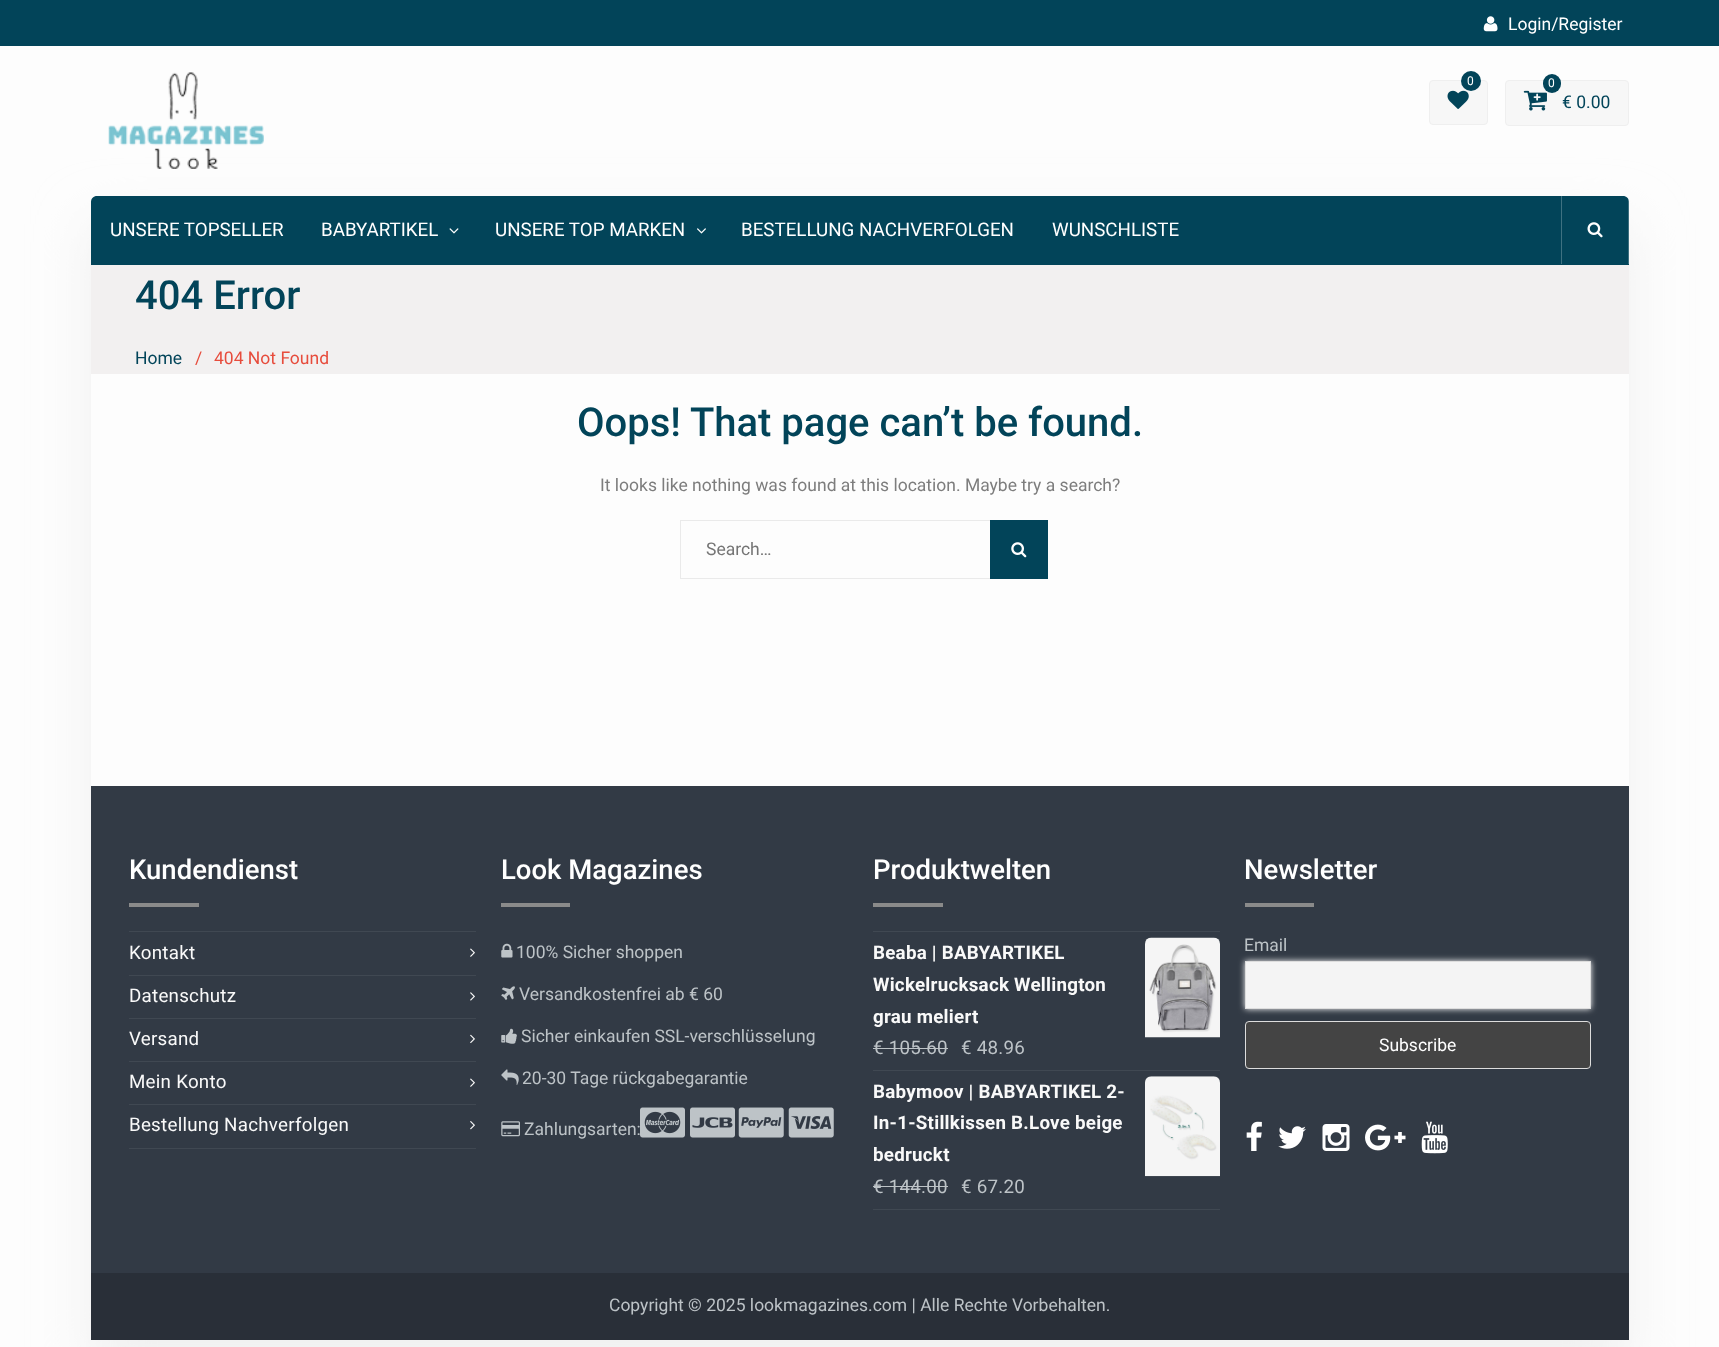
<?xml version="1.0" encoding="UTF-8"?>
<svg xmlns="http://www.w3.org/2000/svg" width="1719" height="1347">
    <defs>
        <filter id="blur1" x="-50%" y="-200%" width="200%" height="500%"><feGaussianBlur stdDeviation="27.5"/></filter>
        <filter id="blur2" x="-50%" y="-200%" width="200%" height="500%"><feGaussianBlur stdDeviation="3"/></filter>
    </defs>
    <rect width="100%" height="100%" fill="#FDFDFD"/>
    <rect x="0" y="0" width="1719" height="46" fill="#024459"/>
    <image x="1483" y="16" width="15" height="16" href="img_01.png"/>
    <text x="1508" y="30" font-family="Roboto" font-size="17.5" fill="#FFFFFF">Login/Register</text>
    <rect x="91" y="224" width="1538" height="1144" fill="#EFEFEF" filter="url(#blur1)"/>
    <image x="108" y="72" width="156" height="97" href="img_02.png"/>
    <rect x="1429.5" y="80.5" width="58" height="44" rx="3.5" fill="#F7F7F7" stroke="#EFEFEF"/>
    <image x="1447" y="90" width="22" height="19" href="img_03.png"/>
    <circle cx="1471" cy="81" r="10" fill="#024459"/>
    <text x="1467" y="85" font-family="Roboto" font-size="12" fill="#FFFFFF">0</text>
    <rect x="1505.5" y="80.5" width="123" height="45" rx="3.5" fill="#F7F7F7" stroke="#EFEFEF"/>
    <image x="1523" y="90" width="24" height="21" href="img_04.png"/>
    <rect x="1543" y="74" width="18" height="19" rx="9" fill="#024459"/>
    <text x="1548" y="87" font-family="Roboto" font-size="12" fill="#FFFFFF">0</text>
    <text x="1562" y="108" font-family="Roboto" font-size="17.5" fill="#024459">€ 0.00</text>
    <path d="M 97 196 H 1623 C 1626.5 196 1629 198.5 1629 202 V 265 H 91 V 202 C 91 198.5 93.5 196 97 196 Z" fill="#024459"/>
    <text x="110" y="236" font-family="Roboto" font-size="18.75" fill="#FFFFFF">UNSERE TOPSELLER</text>
    <text x="321" y="236" font-family="Roboto" font-size="18.75" fill="#FFFFFF">BABYARTIKEL</text>
    <image x="449" y="228" width="10" height="6" href="img_05.png"/>
    <text x="495" y="236" font-family="Roboto" font-size="18.75" fill="#FFFFFF">UNSERE TOP MARKEN</text>
    <image x="697" y="228" width="9" height="6" href="img_06.png"/>
    <text x="741" y="236" font-family="Roboto" font-size="18.75" fill="#FFFFFF">BESTELLUNG NACHVERFOLGEN</text>
    <text x="1052" y="236" font-family="Roboto" font-size="18.75" fill="#FFFFFF">WUNSCHLISTE</text>
    <rect x="1628" y="196" width="1" height="68" fill="#FFFFFF" fill-opacity="0.24"/>
    <rect x="1561" y="196" width="1" height="68" fill="#3F7181"/>
    <image x="1587" y="222" width="16" height="16" href="img_07.png"/>
    <rect x="91" y="265" width="1538" height="109" fill="#F2F0F0"/>
    <text x="135" y="309" font-family="Roboto" font-size="40" font-weight="500" fill="#024459">404 Error</text>
    <text x="135" y="364" font-family="Roboto" font-size="17.5" fill="#024459">Home</text>
    <text x="195" y="364" font-family="Roboto" font-size="17.5" fill="#E74C3C">/</text>
    <text x="214" y="364" font-family="Roboto" font-size="17.5" fill="#E74C3C">404 Not Found</text>
    <rect x="91" y="374" width="1538" height="412" fill="#FDFDFD"/>
    <text x="577" y="436" font-family="Roboto" font-size="40" font-weight="500" fill="#024459">Oops! That page can’t be found.</text>
    <text x="600" y="491" font-family="Roboto" font-size="17.5" fill="#7D7D7D">It looks like nothing was found at this location. Maybe try a search?</text>
    <rect x="680.5" y="520.5" width="360" height="58" fill="none" stroke="#EAEAEA"/>
    <text x="706" y="555" font-family="Roboto" font-size="17.5" fill="#757575">Search…</text>
    <rect x="990" y="520" width="58" height="59" fill="#024459"/>
    <image x="1011" y="542" width="16" height="16" href="img_08.png"/>
    <rect x="91" y="786" width="1538" height="487" fill="#323A45"/>
    <text x="129" y="879" font-family="Roboto" font-size="27.5" font-weight="500" fill="#FFFFFF">Kundendienst</text>
    <rect x="129" y="903" width="70" height="4" fill="#8A8A8A"/>
    <rect x="129" y="931" width="347" height="1" fill="#404852"/>
    <text x="129" y="959" font-family="Roboto" font-size="18.75" letter-spacing="0.25" fill="#F9F9F9">Kontakt</text>
    <image x="470" y="948" width="5" height="9" href="img_09.png"/>
    <rect x="129" y="975" width="347" height="1" fill="#404852"/>
    <text x="129" y="1002" font-family="Roboto" font-size="18.75" letter-spacing="0.25" fill="#F9F9F9">Datenschutz</text>
    <image x="470" y="992" width="5" height="9" href="img_10.png"/>
    <rect x="129" y="1018" width="347" height="1" fill="#404852"/>
    <text x="129" y="1045" font-family="Roboto" font-size="18.75" letter-spacing="0.25" fill="#F9F9F9">Versand</text>
    <image x="470" y="1034" width="5" height="10" href="img_11.png"/>
    <rect x="129" y="1061" width="347" height="1" fill="#404852"/>
    <text x="129" y="1088" font-family="Roboto" font-size="18.75" letter-spacing="0.25" fill="#F9F9F9">Mein Konto</text>
    <image x="470" y="1078" width="5" height="9" href="img_09.png"/>
    <rect x="129" y="1104" width="347" height="1" fill="#404852"/>
    <rect x="129" y="1148" width="347" height="1" fill="#404852"/>
    <text x="129" y="1131" font-family="Roboto" font-size="18.75" letter-spacing="0.25" fill="#F9F9F9">Bestellung Nachverfolgen</text>
    <image x="470" y="1121" width="5" height="9" href="img_12.png"/>
    <text x="501" y="879" font-family="Roboto" font-size="27.5" font-weight="500" fill="#FFFFFF">Look Magazines</text>
    <rect x="501" y="903" width="69" height="4" fill="#8A8A8A"/>
    <image x="501" y="943" width="12" height="15" href="img_13.png"/>
    <text x="516" y="958" font-family="Roboto" font-size="17.5" fill="#BDC3C7">100% Sicher shoppen</text>
    <image x="501" y="986" width="14" height="14" href="img_14.png"/>
    <text x="519" y="1000" font-family="Roboto" font-size="17.5" fill="#BDC3C7">Versandkostenfrei ab € 60</text>
    <image x="501" y="1028" width="16" height="16" href="img_15.png"/>
    <text x="521" y="1042" font-family="Roboto" font-size="17.5" fill="#BDC3C7">Sicher einkaufen SSL-verschlüsselung</text>
    <image x="501" y="1069" width="18" height="16" href="img_16.png"/>
    <text x="522" y="1084" font-family="Roboto" font-size="17.5" fill="#BDC3C7">20-30 Tage rückgabegarantie</text>
    <image x="501" y="1121" width="19" height="16" href="img_17.png"/>
    <text x="524" y="1135" font-family="Roboto" font-size="17.5" fill="#BDC3C7">Zahlungsarten:</text>
    <image x="640" y="1107" width="45" height="31" href="img_18.png"/>
    <image x="690" y="1107" width="45" height="31" href="img_19.png"/>
    <image x="738" y="1107" width="46" height="31" href="img_20.png"/>
    <image x="788" y="1107" width="46" height="31" href="img_21.png"/>
    <text x="873" y="879" font-family="Roboto" font-size="27.5" font-weight="500" fill="#FFFFFF">Produktwelten</text>
    <rect x="873" y="903" width="70" height="4" fill="#8A8A8A"/>
    <rect x="873" y="931" width="347" height="1" fill="#404852"/>
    <text x="873" y="959" font-family="Roboto" font-size="18.75" font-weight="700" letter-spacing="0.25" fill="#F9F9F9">Beaba | BABYARTIKEL</text>
    <image x="1145" y="937" width="75" height="101" href="img_22.png"/>
    <text font-family="Roboto" font-size="18.75" font-weight="700" letter-spacing="0.25" fill="#F9F9F9">
        <tspan x="873" y="991">Wickelrucksack Wellington</tspan>
        <tspan x="873" y="1023">grau meliert</tspan>
    </text>
    <text x="873" y="1054" font-family="Roboto" font-size="18.75" letter-spacing="0.25" fill="#BDC3C7">€ 105.60</text>
    <rect x="873" y="1048" width="75" height="1" fill="#BDC3C7"/>
    <text x="961" y="1054" font-family="Roboto" font-size="18.75" letter-spacing="0.25" fill="#BDC3C7">€ 48.96</text>
    <rect x="873" y="1070" width="347" height="1" fill="#404852"/>
    <rect x="873" y="1209" width="347" height="1" fill="#404852"/>
    <text x="873" y="1098" font-family="Roboto" font-size="18.75" font-weight="700" letter-spacing="0.25" fill="#F9F9F9">Babymoov | BABYARTIKEL 2-</text>
    <image x="1145" y="1076" width="75" height="101" href="img_23.png"/>
    <text font-family="Roboto" font-size="18.75" font-weight="700" letter-spacing="0.25" fill="#F9F9F9">
        <tspan x="873" y="1129">In-1-Stillkissen B.Love beige</tspan>
        <tspan x="873" y="1161">bedruckt</tspan>
    </text>
    <text x="873" y="1193" font-family="Roboto" font-size="18.75" letter-spacing="0.25" fill="#BDC3C7">€ 144.00</text>
    <rect x="873" y="1186" width="75" height="1" fill="#BDC3C7"/>
    <text x="961" y="1193" font-family="Roboto" font-size="18.75" letter-spacing="0.25" fill="#BDC3C7">€ 67.20</text>
    <text x="1244" y="879" font-family="Roboto" font-size="27.5" font-weight="500" fill="#FFFFFF">Newsletter</text>
    <rect x="1245" y="903" width="69" height="4" fill="#8A8A8A"/>
    <rect x="1245" y="961" width="346" height="48" fill="#F9F9F9" filter="url(#blur2)"/>
    <text x="1244" y="951" font-family="Roboto" font-size="17.5" fill="#BDC3C7">Email</text>
    <rect x="1245.5" y="961.5" width="345" height="47" fill="#F4F4F4" stroke="#DDDDDD"/>
    <rect x="1245.5" y="1021.5" width="345" height="47" rx="3.5" fill="#444444" stroke="#DDDDDD"/>
    <text x="1379" y="1051" font-family="Roboto" font-size="17.5" fill="#FFFFFF">Subscribe</text>
    <image x="1246" y="1121" width="16" height="30" href="img_24.png"/>
    <image x="1278" y="1126" width="28" height="23" href="img_25.png"/>
    <image x="1322" y="1124" width="28" height="27" href="img_26.png"/>
    <image x="1365" y="1124" width="41" height="27" href="img_27.png"/>
    <image x="1421" y="1121" width="27" height="33" href="img_28.png"/>
    <rect x="91" y="1273" width="1538" height="67" fill="#292F38"/>
    <text x="609" y="1311" font-family="Roboto" font-size="17.5" fill="#BDC3C7">Copyright © 2025 lookmagazines.com | Alle Rechte Vorbehalten.</text>
</svg>
